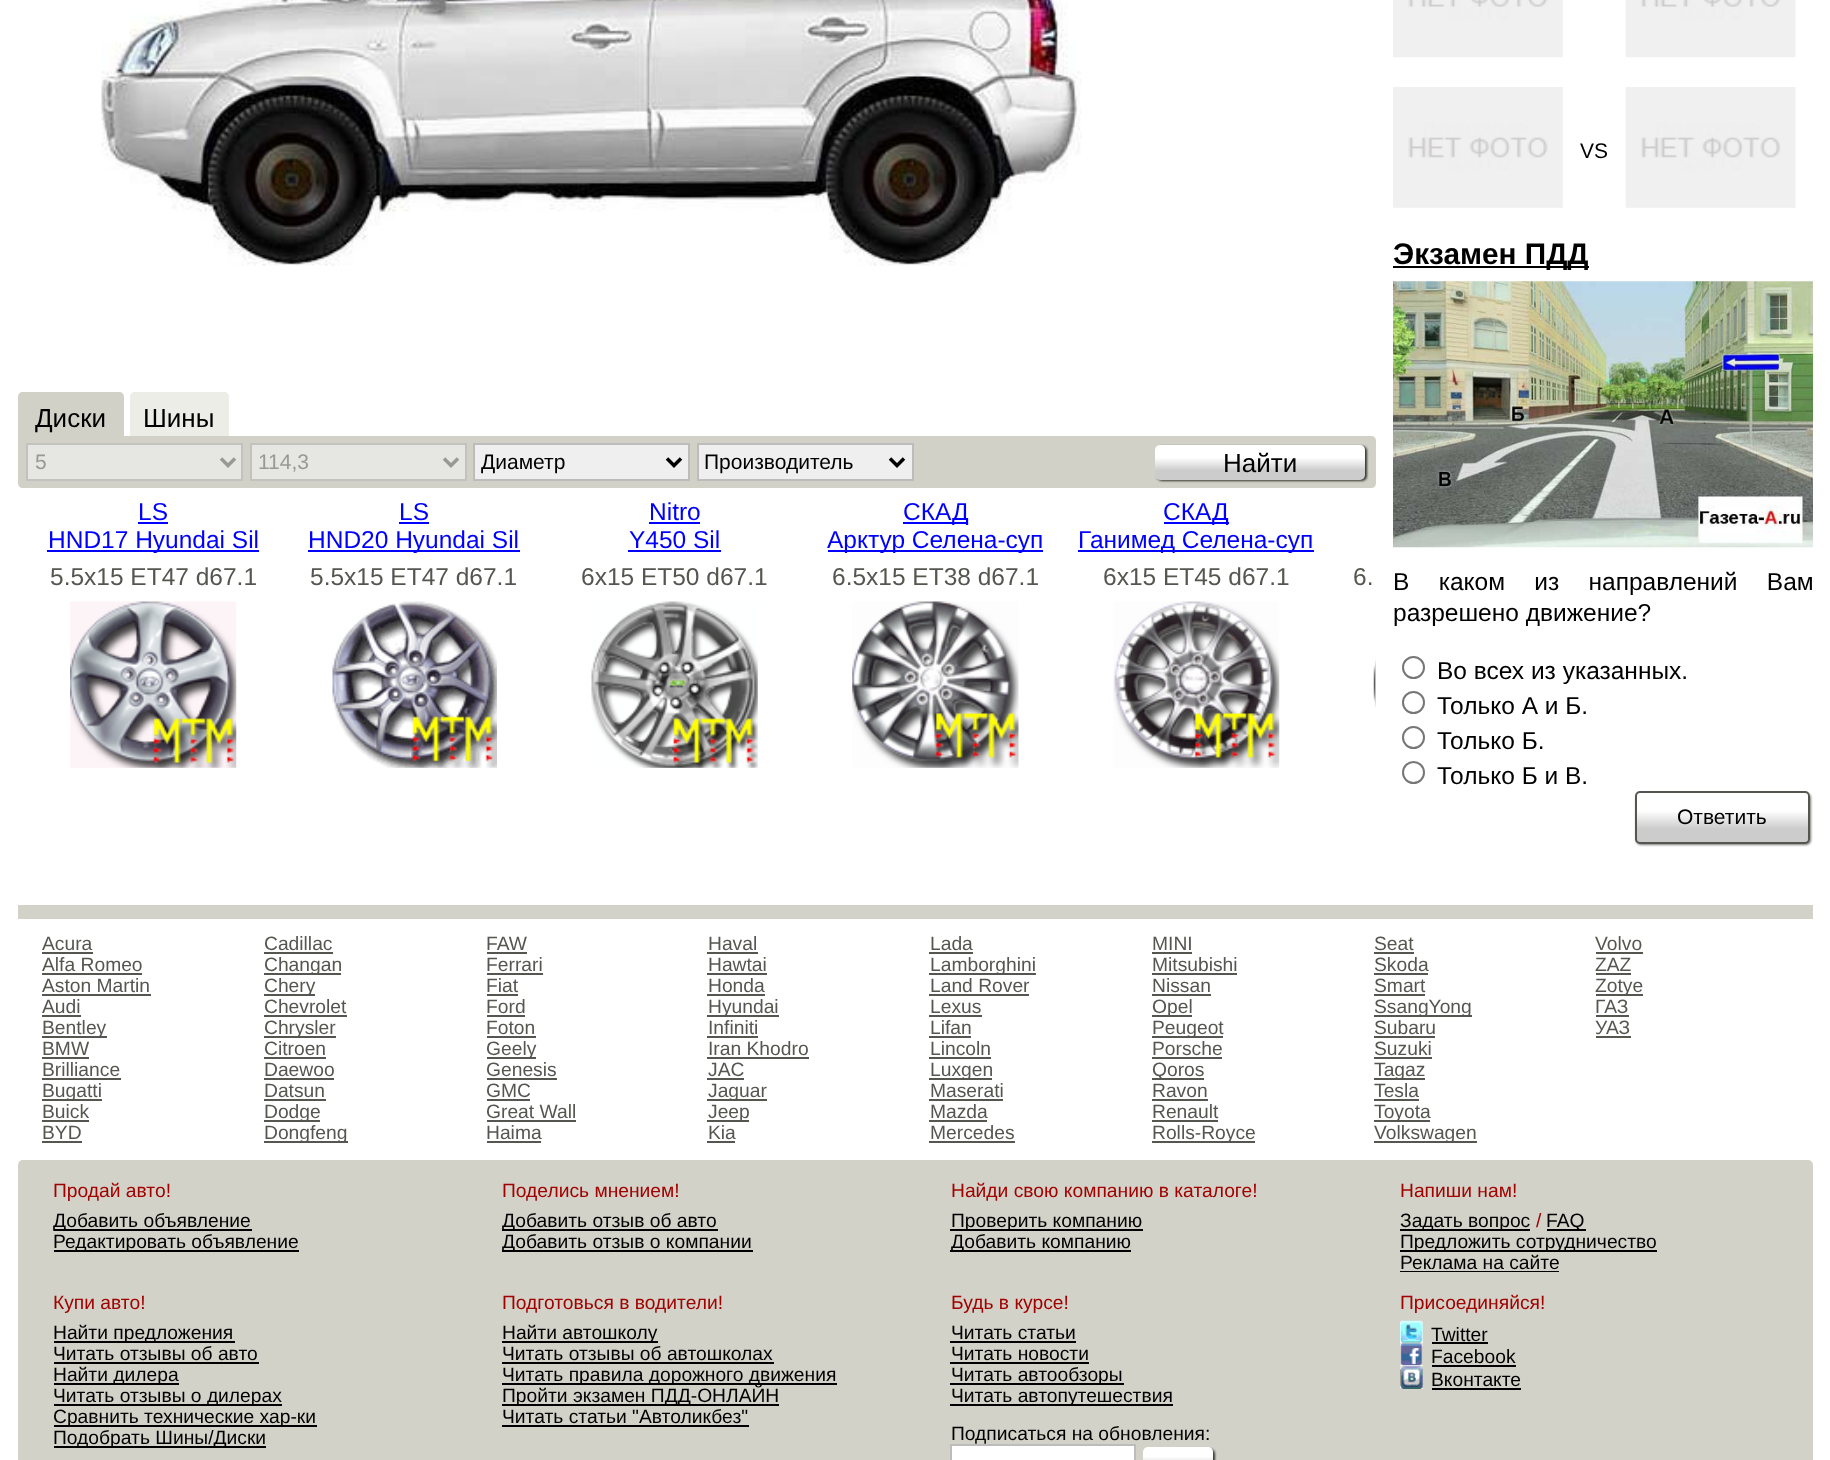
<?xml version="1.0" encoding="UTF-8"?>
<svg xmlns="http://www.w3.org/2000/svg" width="1830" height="1460">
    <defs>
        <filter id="blur1" x="-50%" y="-200%" width="200%" height="500%"><feGaussianBlur stdDeviation="1"/></filter>
        <linearGradient id="g1" gradientUnits="userSpaceOnUse" x1="1155" y1="480" x2="1155" y2="445"><stop offset="0.27" stop-color="#CCCCCC"/><stop offset="0.64" stop-color="#FFFFFF"/></linearGradient>
        <clipPath id="clip1"><rect x="1635" y="791" width="175" height="53" rx="5"/></clipPath>
        <linearGradient id="g2" gradientUnits="userSpaceOnUse" x1="1636" y1="842" x2="1636" y2="793"><stop offset="0.27" stop-color="#CCCCCC"/><stop offset="0.64" stop-color="#FFFFFF"/></linearGradient>
        <linearGradient id="g3" gradientUnits="userSpaceOnUse" x1="1143" y1="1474" x2="1143" y2="1447"><stop offset="0.27" stop-color="#CCCCCC"/><stop offset="0.64" stop-color="#FFFFFF"/></linearGradient>
    </defs>
    <rect width="100%" height="100%" fill="#FFFFFF"/>
    <image x="101" y="0" width="981" height="266" href="img_01.png"/>
    <path d="M 23 392 H 119 C 122 392 124 394 124 397 V 436 H 18 V 397 C 18 394 20 392 23 392 Z" fill="#D1D1C7"/>
    <text x="35" y="427" font-family="Liberation Sans" font-size="26" fill="#000000">Диски</text>
    <path d="M 135 392 H 224 C 227 392 229 394 229 397 V 436 H 130 V 397 C 130 394 132 392 135 392 Z" fill="#EDEDE8"/>
    <text x="143" y="427" font-family="Liberation Sans" font-size="26" fill="#000000">Шины</text>
    <path d="M 18 436 H 1371 C 1374 436 1376 438 1376 441 V 483 C 1376 486 1374 488 1371 488 H 23 C 20 488 18 486 18 483 Z" fill="#D1D1C7"/>
    <rect x="27" y="444" width="215" height="36" fill="#E6E6E3" stroke="#C2C2BF" stroke-width="2"/>
    <path d="M 221 458.5 L 228 465.5 L 235 458.5" fill="none" stroke="#989895" stroke-width="3.5"/>
    <text x="35" y="469" font-family="Liberation Sans" font-size="21" fill="#989895">5</text>
    <rect x="251" y="444" width="215" height="36" fill="#E6E6E3" stroke="#C2C2BF" stroke-width="2"/>
    <path d="M 444 458.5 L 451 465.5 L 458 458.5" fill="none" stroke="#989895" stroke-width="3.5"/>
    <text x="258" y="469" font-family="Liberation Sans" font-size="21" fill="#989895">114,3</text>
    <rect x="474" y="444" width="215" height="36" fill="#EFEFEF" stroke="#BCBCBC" stroke-width="2"/>
    <path d="M 667 458.5 L 674 465.5 L 681 458.5" fill="none" stroke="#000000" stroke-width="3.5"/>
    <text x="481" y="469" font-family="Liberation Sans" font-size="21" fill="#000000">Диаметр</text>
    <rect x="698" y="444" width="215" height="36" fill="#EFEFEF" stroke="#BCBCBC" stroke-width="2"/>
    <path d="M 890 458.5 L 897 465.5 L 904 458.5" fill="none" stroke="#000000" stroke-width="3.5"/>
    <text x="704" y="469" font-family="Liberation Sans" font-size="21" fill="#000000">Производитель</text>
    <rect x="1157" y="446" width="210" height="35" rx="5" fill="#363632" filter="url(#blur1)"/>
    <rect x="1155" y="445" width="210" height="35" rx="5" fill="url(#g1)"/>
    <text x="1223" y="472" font-family="Liberation Sans" font-size="26" fill="#000000">Найти</text>
    <text x="138" y="520" font-family="Liberation Sans" font-size="24.5" fill="#0000FF">LS</text>
    <rect x="138" y="522" width="30" height="2" fill="#0000FF"/>
    <rect x="47" y="550" width="212" height="2" fill="#0000FF"/>
    <text x="48" y="548" font-family="Liberation Sans" font-size="24.5" fill="#0000FF">HND17 Hyundai Sil</text>
    <text x="50" y="585" font-family="Liberation Sans" font-size="24.5" fill="#565651">5.5x15 ET47 d67.1</text>
    <image x="70" y="601" width="167" height="167" href="img_02.png"/>
    <text x="399" y="520" font-family="Liberation Sans" font-size="24.5" fill="#0000FF">LS</text>
    <rect x="399" y="522" width="30" height="2" fill="#0000FF"/>
    <rect x="308" y="550" width="212" height="2" fill="#0000FF"/>
    <text x="308" y="548" font-family="Liberation Sans" font-size="24.5" fill="#0000FF">HND20 Hyundai Sil</text>
    <text x="310" y="585" font-family="Liberation Sans" font-size="24.5" fill="#565651">5.5x15 ET47 d67.1</text>
    <image x="332" y="601" width="165" height="167" href="img_03.png"/>
    <text x="649" y="520" font-family="Liberation Sans" font-size="24.5" fill="#0000FF">Nitro</text>
    <rect x="649" y="522" width="51" height="2" fill="#0000FF"/>
    <text x="629" y="548" font-family="Liberation Sans" font-size="24.5" fill="#0000FF">Y450 Sil</text>
    <rect x="628" y="550" width="93" height="2" fill="#0000FF"/>
    <text x="581" y="585" font-family="Liberation Sans" font-size="24.5" fill="#565651">6x15 ET50 d67.1</text>
    <image x="591" y="601" width="167" height="167" href="img_04.png"/>
    <rect x="903" y="522" width="65" height="2" fill="#0000FF"/>
    <text x="903" y="520" font-family="Liberation Sans" font-size="24.5" fill="#0000FF">СКАД</text>
    <rect x="828" y="550" width="215" height="2" fill="#0000FF"/>
    <text x="827" y="548" font-family="Liberation Sans" font-size="24.5" fill="#0000FF">Арктур Селена-суп</text>
    <text x="832" y="585" font-family="Liberation Sans" font-size="24.5" fill="#565651">6.5x15 ET38 d67.1</text>
    <image x="852" y="601" width="167" height="167" href="img_05.png"/>
    <rect x="1164" y="522" width="65" height="2" fill="#0000FF"/>
    <text x="1163" y="520" font-family="Liberation Sans" font-size="24.5" fill="#0000FF">СКАД</text>
    <rect x="1078" y="550" width="236" height="2" fill="#0000FF"/>
    <text x="1078" y="548" font-family="Liberation Sans" font-size="24.5" fill="#0000FF">Ганимед Селена-суп</text>
    <text x="1103" y="585" font-family="Liberation Sans" font-size="24.5" fill="#565651">6x15 ET45 d67.1</text>
    <image x="1113" y="601" width="167" height="167" href="img_06.png"/>
    <text x="1353" y="585" font-family="Liberation Sans" font-size="24.5" fill="#565651">6.</text>
    <image x="1373" y="659" width="3" height="49" href="img_07.png"/>
    <image x="1393" y="0" width="170" height="58" href="img_08.png"/>
    <image x="1625" y="0" width="171" height="58" href="img_09.png"/>
    <image x="1393" y="87" width="170" height="121" href="img_10.png"/>
    <text x="1580" y="158" font-family="Liberation Sans" font-size="21" fill="#000000">VS</text>
    <image x="1625" y="87" width="171" height="121" href="img_11.png"/>
    <rect x="1393" y="266" width="196" height="2" fill="#000000"/>
    <text x="1393" y="264" font-family="Liberation Sans" font-size="29.75" font-weight="700" fill="#000000">Экзамен ПДД</text>
    <image x="1393" y="281" width="420" height="267" href="img_12.png"/>
    <text font-family="Liberation Sans" font-size="24.5" fill="#000000">
        <tspan x="1393" y="590" word-spacing="22.5">В каком из направлений Вам</tspan>
        <tspan x="1393" y="621">разрешено движение?</tspan>
    </text>
    <circle cx="1413.5" cy="667.5" r="10.5" fill="none" stroke="#767676" stroke-width="2"/>
    <text x="1437" y="679" font-family="Liberation Sans" font-size="24.5" fill="#000000">Во всех из указанных.</text>
    <circle cx="1413.5" cy="702.5" r="10.5" fill="none" stroke="#767676" stroke-width="2"/>
    <text x="1437" y="714" font-family="Liberation Sans" font-size="24.5" fill="#000000">Только А и Б.</text>
    <circle cx="1413.5" cy="737.5" r="10.5" fill="none" stroke="#767676" stroke-width="2"/>
    <text x="1437" y="749" font-family="Liberation Sans" font-size="24.5" fill="#000000">Только Б.</text>
    <circle cx="1413.5" cy="772.5" r="10.5" fill="none" stroke="#767676" stroke-width="2"/>
    <text x="1437" y="784" font-family="Liberation Sans" font-size="24.5" fill="#000000">Только Б и В.</text>
    <rect x="1636" y="793" width="175" height="52" rx="5" fill="#787878" filter="url(#blur1)"/>
    <g clip-path="url(#clip1)">
        <rect x="1635" y="793" width="175" height="49" fill="url(#g2)"/>
    </g>
    <rect x="1636" y="792" width="173" height="51" rx="4" fill="none" stroke="#565651" stroke-width="2"/>
    <text x="1677" y="824" font-family="Liberation Sans" font-size="21" fill="#000000">Ответить</text>
    <rect x="18" y="905" width="1795" height="14" fill="#D2D2C8"/>
    <text x="42" y="950" font-family="Liberation Sans" font-size="19.25" fill="#565651">Acura</text>
    <rect x="42" y="952" width="51" height="2" fill="#565651"/>
    <text x="42" y="971" font-family="Liberation Sans" font-size="19.25" fill="#565651">Alfa Romeo</text>
    <rect x="42" y="973" width="100" height="2" fill="#565651"/>
    <text x="42" y="992" font-family="Liberation Sans" font-size="19.25" fill="#565651">Aston Martin</text>
    <rect x="42" y="994" width="109" height="2" fill="#565651"/>
    <text x="42" y="1013" font-family="Liberation Sans" font-size="19.25" fill="#565651">Audi</text>
    <rect x="42" y="1015" width="39" height="2" fill="#565651"/>
    <rect x="42" y="1036" width="65" height="2" fill="#565651"/>
    <text font-family="Liberation Sans" font-size="19.25" fill="#565651">
        <tspan x="42" y="1034">Bentley</tspan>
        <tspan x="42" y="1055">BMW</tspan>
    </text>
    <rect x="42" y="1057" width="47" height="2" fill="#565651"/>
    <text x="42" y="1076" font-family="Liberation Sans" font-size="19.25" fill="#565651">Brilliance</text>
    <rect x="42" y="1078" width="79" height="2" fill="#565651"/>
    <rect x="42" y="1099" width="60" height="2" fill="#565651"/>
    <text font-family="Liberation Sans" font-size="19.25" fill="#565651">
        <tspan x="42" y="1097">Bugatti</tspan>
        <tspan x="42" y="1118">Buick</tspan>
    </text>
    <rect x="42" y="1120" width="47" height="2" fill="#565651"/>
    <text x="42" y="1139" font-family="Liberation Sans" font-size="19.25" fill="#565651">BYD</text>
    <rect x="42" y="1141" width="40" height="2" fill="#565651"/>
    <text x="264" y="950" font-family="Liberation Sans" font-size="19.25" fill="#565651">Cadillac</text>
    <rect x="264" y="952" width="69" height="2" fill="#565651"/>
    <rect x="264" y="973" width="77" height="2" fill="#565651"/>
    <text x="264" y="971" font-family="Liberation Sans" font-size="19.25" fill="#565651">Changan</text>
    <rect x="264" y="994" width="51" height="2" fill="#565651"/>
    <text font-family="Liberation Sans" font-size="19.25" fill="#565651">
        <tspan x="264" y="992">Chery</tspan>
        <tspan x="264" y="1013">Chevrolet</tspan>
    </text>
    <rect x="264" y="1015" width="83" height="2" fill="#565651"/>
    <rect x="264" y="1036" width="72" height="2" fill="#565651"/>
    <text font-family="Liberation Sans" font-size="19.25" fill="#565651">
        <tspan x="264" y="1034">Chrysler</tspan>
        <tspan x="264" y="1055">Citroen</tspan>
    </text>
    <rect x="264" y="1057" width="62" height="2" fill="#565651"/>
    <text x="264" y="1076" font-family="Liberation Sans" font-size="19.25" fill="#565651">Daewoo</text>
    <rect x="264" y="1078" width="70" height="2" fill="#565651"/>
    <text x="264" y="1097" font-family="Liberation Sans" font-size="19.25" fill="#565651">Datsun</text>
    <rect x="264" y="1099" width="62" height="2" fill="#565651"/>
    <rect x="264" y="1120" width="56" height="2" fill="#565651"/>
    <text x="264" y="1118" font-family="Liberation Sans" font-size="19.25" fill="#565651">Dodge</text>
    <rect x="264" y="1141" width="84" height="2" fill="#565651"/>
    <text x="264" y="1139" font-family="Liberation Sans" font-size="19.25" fill="#565651">Dongfeng</text>
    <text x="486" y="950" font-family="Liberation Sans" font-size="19.25" fill="#565651">FAW</text>
    <rect x="487" y="952" width="40" height="2" fill="#565651"/>
    <text x="486" y="971" font-family="Liberation Sans" font-size="19.25" fill="#565651">Ferrari</text>
    <rect x="487" y="973" width="56" height="2" fill="#565651"/>
    <text x="486" y="992" font-family="Liberation Sans" font-size="19.25" fill="#565651">Fiat</text>
    <rect x="487" y="994" width="31" height="2" fill="#565651"/>
    <text x="486" y="1013" font-family="Liberation Sans" font-size="19.25" fill="#565651">Ford</text>
    <rect x="487" y="1015" width="38" height="2" fill="#565651"/>
    <text x="486" y="1034" font-family="Liberation Sans" font-size="19.25" fill="#565651">Foton</text>
    <rect x="487" y="1036" width="49" height="2" fill="#565651"/>
    <rect x="487" y="1057" width="49" height="2" fill="#565651"/>
    <text font-family="Liberation Sans" font-size="19.25" fill="#565651">
        <tspan x="486" y="1055">Geely</tspan>
        <tspan x="486" y="1076">Genesis</tspan>
    </text>
    <rect x="487" y="1078" width="70" height="2" fill="#565651"/>
    <text x="486" y="1097" font-family="Liberation Sans" font-size="19.25" fill="#565651">GMC</text>
    <rect x="487" y="1099" width="43" height="2" fill="#565651"/>
    <text x="486" y="1118" font-family="Liberation Sans" font-size="19.25" fill="#565651">Great Wall</text>
    <rect x="487" y="1120" width="89" height="2" fill="#565651"/>
    <text x="486" y="1139" font-family="Liberation Sans" font-size="19.25" fill="#565651">Haima</text>
    <rect x="487" y="1141" width="54" height="2" fill="#565651"/>
    <text x="708" y="950" font-family="Liberation Sans" font-size="19.25" fill="#565651">Haval</text>
    <rect x="707" y="952" width="51" height="2" fill="#565651"/>
    <text x="708" y="971" font-family="Liberation Sans" font-size="19.25" fill="#565651">Hawtai</text>
    <rect x="707" y="973" width="60" height="2" fill="#565651"/>
    <text x="708" y="992" font-family="Liberation Sans" font-size="19.25" fill="#565651">Honda</text>
    <rect x="707" y="994" width="58" height="2" fill="#565651"/>
    <rect x="707" y="1015" width="72" height="2" fill="#565651"/>
    <text font-family="Liberation Sans" font-size="19.25" fill="#565651">
        <tspan x="708" y="1013">Hyundai</tspan>
        <tspan x="708" y="1034">Infiniti</tspan>
    </text>
    <rect x="707" y="1036" width="51" height="2" fill="#565651"/>
    <text x="708" y="1055" font-family="Liberation Sans" font-size="19.25" fill="#565651">Iran Khodro</text>
    <rect x="707" y="1057" width="102" height="2" fill="#565651"/>
    <text x="708" y="1076" font-family="Liberation Sans" font-size="19.25" fill="#565651">JAC</text>
    <rect x="707" y="1078" width="37" height="2" fill="#565651"/>
    <rect x="707" y="1099" width="60" height="2" fill="#565651"/>
    <text x="708" y="1097" font-family="Liberation Sans" font-size="19.25" fill="#565651">Jaguar</text>
    <rect x="707" y="1120" width="42" height="2" fill="#565651"/>
    <text font-family="Liberation Sans" font-size="19.25" fill="#565651">
        <tspan x="708" y="1118">Jeep</tspan>
        <tspan x="708" y="1139">Kia</tspan>
    </text>
    <rect x="707" y="1141" width="28" height="2" fill="#565651"/>
    <text x="930" y="950" font-family="Liberation Sans" font-size="19.25" fill="#565651">Lada</text>
    <rect x="929" y="952" width="44" height="2" fill="#565651"/>
    <rect x="929" y="973" width="107" height="2" fill="#565651"/>
    <text font-family="Liberation Sans" font-size="19.25" fill="#565651">
        <tspan x="930" y="971">Lamborghini</tspan>
        <tspan x="930" y="992">Land Rover</tspan>
    </text>
    <rect x="929" y="994" width="100" height="2" fill="#565651"/>
    <text x="930" y="1013" font-family="Liberation Sans" font-size="19.25" fill="#565651">Lexus</text>
    <rect x="929" y="1015" width="53" height="2" fill="#565651"/>
    <text x="930" y="1034" font-family="Liberation Sans" font-size="19.25" fill="#565651">Lifan</text>
    <rect x="929" y="1036" width="42" height="2" fill="#565651"/>
    <text x="930" y="1055" font-family="Liberation Sans" font-size="19.25" fill="#565651">Lincoln</text>
    <rect x="929" y="1057" width="62" height="2" fill="#565651"/>
    <rect x="929" y="1078" width="63" height="2" fill="#565651"/>
    <text font-family="Liberation Sans" font-size="19.25" fill="#565651">
        <tspan x="930" y="1076">Luxgen</tspan>
        <tspan x="930" y="1097">Maserati</tspan>
    </text>
    <rect x="929" y="1099" width="74" height="2" fill="#565651"/>
    <text x="930" y="1118" font-family="Liberation Sans" font-size="19.25" fill="#565651">Mazda</text>
    <rect x="929" y="1120" width="58" height="2" fill="#565651"/>
    <text x="930" y="1139" font-family="Liberation Sans" font-size="19.25" fill="#565651">Mercedes</text>
    <rect x="929" y="1141" width="86" height="2" fill="#565651"/>
    <text x="1152" y="950" font-family="Liberation Sans" font-size="19.25" fill="#565651">MINI</text>
    <rect x="1152" y="952" width="40" height="2" fill="#565651"/>
    <text x="1152" y="971" font-family="Liberation Sans" font-size="19.25" fill="#565651">Mitsubishi</text>
    <rect x="1152" y="973" width="85" height="2" fill="#565651"/>
    <text x="1152" y="992" font-family="Liberation Sans" font-size="19.25" fill="#565651">Nissan</text>
    <rect x="1152" y="994" width="59" height="2" fill="#565651"/>
    <rect x="1152" y="1015" width="40" height="2" fill="#565651"/>
    <text x="1152" y="1013" font-family="Liberation Sans" font-size="19.25" fill="#565651">Opel</text>
    <rect x="1152" y="1036" width="71" height="2" fill="#565651"/>
    <text font-family="Liberation Sans" font-size="19.25" fill="#565651">
        <tspan x="1152" y="1034">Peugeot</tspan>
        <tspan x="1152" y="1055">Porsche</tspan>
    </text>
    <rect x="1152" y="1057" width="70" height="2" fill="#565651"/>
    <rect x="1152" y="1078" width="52" height="2" fill="#565651"/>
    <text font-family="Liberation Sans" font-size="19.25" fill="#565651">
        <tspan x="1152" y="1076">Qoros</tspan>
        <tspan x="1152" y="1097">Ravon</tspan>
    </text>
    <rect x="1152" y="1099" width="56" height="2" fill="#565651"/>
    <text x="1152" y="1118" font-family="Liberation Sans" font-size="19.25" fill="#565651">Renault</text>
    <rect x="1152" y="1120" width="66" height="2" fill="#565651"/>
    <rect x="1152" y="1141" width="103" height="2" fill="#565651"/>
    <text x="1152" y="1139" font-family="Liberation Sans" font-size="19.25" fill="#565651">Rolls-Royce</text>
    <text x="1374" y="950" font-family="Liberation Sans" font-size="19.25" fill="#565651">Seat</text>
    <rect x="1374" y="952" width="40" height="2" fill="#565651"/>
    <text x="1374" y="971" font-family="Liberation Sans" font-size="19.25" fill="#565651">Skoda</text>
    <rect x="1374" y="973" width="54" height="2" fill="#565651"/>
    <text x="1374" y="992" font-family="Liberation Sans" font-size="19.25" fill="#565651">Smart</text>
    <rect x="1374" y="994" width="51" height="2" fill="#565651"/>
    <rect x="1374" y="1015" width="98" height="2" fill="#565651"/>
    <text font-family="Liberation Sans" font-size="19.25" fill="#565651">
        <tspan x="1374" y="1013">SsangYong</tspan>
        <tspan x="1374" y="1034">Subaru</tspan>
    </text>
    <rect x="1374" y="1036" width="61" height="2" fill="#565651"/>
    <text x="1374" y="1055" font-family="Liberation Sans" font-size="19.25" fill="#565651">Suzuki</text>
    <rect x="1374" y="1057" width="58" height="2" fill="#565651"/>
    <rect x="1374" y="1078" width="51" height="2" fill="#565651"/>
    <text font-family="Liberation Sans" font-size="19.25" fill="#565651">
        <tspan x="1374" y="1076">Tagaz</tspan>
        <tspan x="1374" y="1097">Tesla</tspan>
    </text>
    <rect x="1374" y="1099" width="45" height="2" fill="#565651"/>
    <rect x="1374" y="1120" width="56" height="2" fill="#565651"/>
    <text x="1374" y="1118" font-family="Liberation Sans" font-size="19.25" fill="#565651">Toyota</text>
    <rect x="1374" y="1141" width="103" height="2" fill="#565651"/>
    <text x="1374" y="1139" font-family="Liberation Sans" font-size="19.25" fill="#565651">Volkswagen</text>
    <text x="1595" y="950" font-family="Liberation Sans" font-size="19.25" fill="#565651">Volvo</text>
    <rect x="1596" y="952" width="47" height="2" fill="#565651"/>
    <text x="1595" y="971" font-family="Liberation Sans" font-size="19.25" fill="#565651">ZAZ</text>
    <rect x="1596" y="973" width="35" height="2" fill="#565651"/>
    <rect x="1596" y="994" width="47" height="2" fill="#565651"/>
    <text font-family="Liberation Sans" font-size="19.25" fill="#565651">
        <tspan x="1595" y="992">Zotye</tspan>
        <tspan x="1595" y="1013">ГАЗ</tspan>
    </text>
    <rect x="1596" y="1015" width="33" height="2" fill="#565651"/>
    <text x="1595" y="1034" font-family="Liberation Sans" font-size="19.25" fill="#565651">УАЗ</text>
    <rect x="1596" y="1036" width="35" height="2" fill="#565651"/>
    <rect x="18" y="1160" width="1795" height="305" rx="5" fill="#D2D2C8"/>
    <text x="53" y="1197" font-family="Liberation Sans" font-size="19.25" fill="#A10200">Продай авто!</text>
    <rect x="54" y="1229" width="198" height="2" fill="#000000"/>
    <text x="53" y="1227" font-family="Liberation Sans" font-size="19.25" fill="#000000">Добавить объявление</text>
    <rect x="54" y="1250" width="245" height="2" fill="#000000"/>
    <text x="53" y="1248" font-family="Liberation Sans" font-size="19.25" fill="#000000">Редактировать объявление</text>
    <text x="502" y="1197" font-family="Liberation Sans" font-size="19.25" fill="#A10200">Поделись мнением!</text>
    <rect x="502" y="1229" width="216" height="2" fill="#000000"/>
    <text x="502" y="1227" font-family="Liberation Sans" font-size="19.25" fill="#000000">Добавить отзыв об авто</text>
    <rect x="502" y="1250" width="251" height="2" fill="#000000"/>
    <text x="502" y="1248" font-family="Liberation Sans" font-size="19.25" fill="#000000">Добавить отзыв о компании</text>
    <text x="951" y="1197" font-family="Liberation Sans" font-size="19.25" fill="#A10200">Найди свою компанию в каталоге!</text>
    <rect x="950" y="1229" width="193" height="2" fill="#000000"/>
    <text x="951" y="1227" font-family="Liberation Sans" font-size="19.25" fill="#000000">Проверить компанию</text>
    <rect x="950" y="1250" width="181" height="2" fill="#000000"/>
    <text x="951" y="1248" font-family="Liberation Sans" font-size="19.25" fill="#000000">Добавить компанию</text>
    <text x="1400" y="1197" font-family="Liberation Sans" font-size="19.25" fill="#A10200">Напиши нам!</text>
    <rect x="1400" y="1229" width="130" height="2" fill="#000000"/>
    <text x="1400" y="1227" font-family="Liberation Sans" font-size="19.25" fill="#000000">Задать вопрос</text>
    <text x="1536" y="1227" font-family="Liberation Sans" font-size="19.25" fill="#A10200">/</text>
    <rect x="1547" y="1229" width="39" height="2" fill="#000000"/>
    <text x="1546" y="1227" font-family="Liberation Sans" font-size="19.25" fill="#000000">FAQ</text>
    <rect x="1400" y="1250" width="257" height="2" fill="#000000"/>
    <text font-family="Liberation Sans" font-size="19.25" fill="#000000">
        <tspan x="1400" y="1248">Предложить сотрудничество</tspan>
        <tspan x="1400" y="1269">Реклама на сайте</tspan>
    </text>
    <rect x="1400" y="1271" width="159" height="1" fill="#000000"/>
    <text x="53" y="1309" font-family="Liberation Sans" font-size="19.25" fill="#A10200">Купи авто!</text>
    <rect x="54" y="1341" width="181" height="2" fill="#000000"/>
    <text font-family="Liberation Sans" font-size="19.25" fill="#000000">
        <tspan x="53" y="1339">Найти предложения</tspan>
        <tspan x="53" y="1360">Читать отзывы об авто</tspan>
    </text>
    <rect x="54" y="1362" width="205" height="2" fill="#000000"/>
    <rect x="54" y="1383" width="125" height="2" fill="#000000"/>
    <text x="53" y="1381" font-family="Liberation Sans" font-size="19.25" fill="#000000">Найти дилера</text>
    <rect x="54" y="1404" width="228" height="2" fill="#000000"/>
    <text x="53" y="1402" font-family="Liberation Sans" font-size="19.25" fill="#000000">Читать отзывы о дилерах</text>
    <rect x="54" y="1425" width="263" height="2" fill="#000000"/>
    <text x="53" y="1423" font-family="Liberation Sans" font-size="19.25" fill="#000000">Сравнить технические хар-ки</text>
    <rect x="54" y="1446" width="212" height="2" fill="#000000"/>
    <text x="53" y="1444" font-family="Liberation Sans" font-size="19.25" fill="#000000">Подобрать Шины/Диски</text>
    <text x="502" y="1309" font-family="Liberation Sans" font-size="19.25" fill="#A10200">Подготовься в водители!</text>
    <rect x="502" y="1341" width="156" height="2" fill="#000000"/>
    <text font-family="Liberation Sans" font-size="19.25" fill="#000000">
        <tspan x="502" y="1339">Найти автошколу</tspan>
        <tspan x="502" y="1360">Читать отзывы об автошколах</tspan>
    </text>
    <rect x="502" y="1362" width="272" height="2" fill="#000000"/>
    <rect x="502" y="1383" width="335" height="2" fill="#000000"/>
    <text x="502" y="1381" font-family="Liberation Sans" font-size="19.25" fill="#000000">Читать правила дорожного движения</text>
    <rect x="502" y="1404" width="277" height="2" fill="#000000"/>
    <text font-family="Liberation Sans" font-size="19.25" fill="#000000">
        <tspan x="502" y="1402">Пройти экзамен ПДД-ОНЛАЙН</tspan>
        <tspan x="502" y="1423">Читать статьи "Автоликбез"</tspan>
    </text>
    <rect x="502" y="1425" width="247" height="2" fill="#000000"/>
    <text x="951" y="1309" font-family="Liberation Sans" font-size="19.25" fill="#A10200">Будь в курсе!</text>
    <text x="951" y="1339" font-family="Liberation Sans" font-size="19.25" fill="#000000">Читать статьи</text>
    <rect x="950" y="1341" width="126" height="2" fill="#000000"/>
    <text x="951" y="1360" font-family="Liberation Sans" font-size="19.25" fill="#000000">Читать новости</text>
    <rect x="950" y="1362" width="139" height="2" fill="#000000"/>
    <rect x="950" y="1383" width="174" height="2" fill="#000000"/>
    <text x="951" y="1381" font-family="Liberation Sans" font-size="19.25" fill="#000000">Читать автообзоры</text>
    <rect x="950" y="1404" width="223" height="2" fill="#000000"/>
    <text font-family="Liberation Sans" font-size="19.25" fill="#000000">
        <tspan x="951" y="1402">Читать автопутешествия</tspan>
        <tspan x="951" y="1440">Подписаться на обновления:</tspan>
    </text>
    <rect x="951" y="1445" width="184" height="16" fill="#FFFFFF" stroke="#BCBCBC" stroke-width="2"/>
    <rect x="1145" y="1449" width="70" height="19" rx="5" fill="#363632" filter="url(#blur1)"/>
    <rect x="1143" y="1447" width="70" height="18" rx="5" fill="url(#g3)"/>
    <text x="1400" y="1309" font-family="Liberation Sans" font-size="19.25" fill="#A10200">Присоединяйся!</text>
    <image x="1400" y="1320" width="23" height="24" href="img_13.png"/>
    <text x="1431" y="1341" font-family="Liberation Sans" font-size="19.25" fill="#000000">Twitter</text>
    <rect x="1432" y="1342" width="56" height="2" fill="#000000"/>
    <image x="1400" y="1343" width="23" height="24" href="img_14.png"/>
    <text x="1431" y="1363" font-family="Liberation Sans" font-size="19.25" fill="#000000">Facebook</text>
    <rect x="1432" y="1365" width="84" height="2" fill="#000000"/>
    <image x="1400" y="1366" width="23" height="23" href="img_15.png"/>
    <text x="1431" y="1386" font-family="Liberation Sans" font-size="19.25" fill="#000000">Вконтакте</text>
    <rect x="1432" y="1388" width="89" height="2" fill="#000000"/>
</svg>
